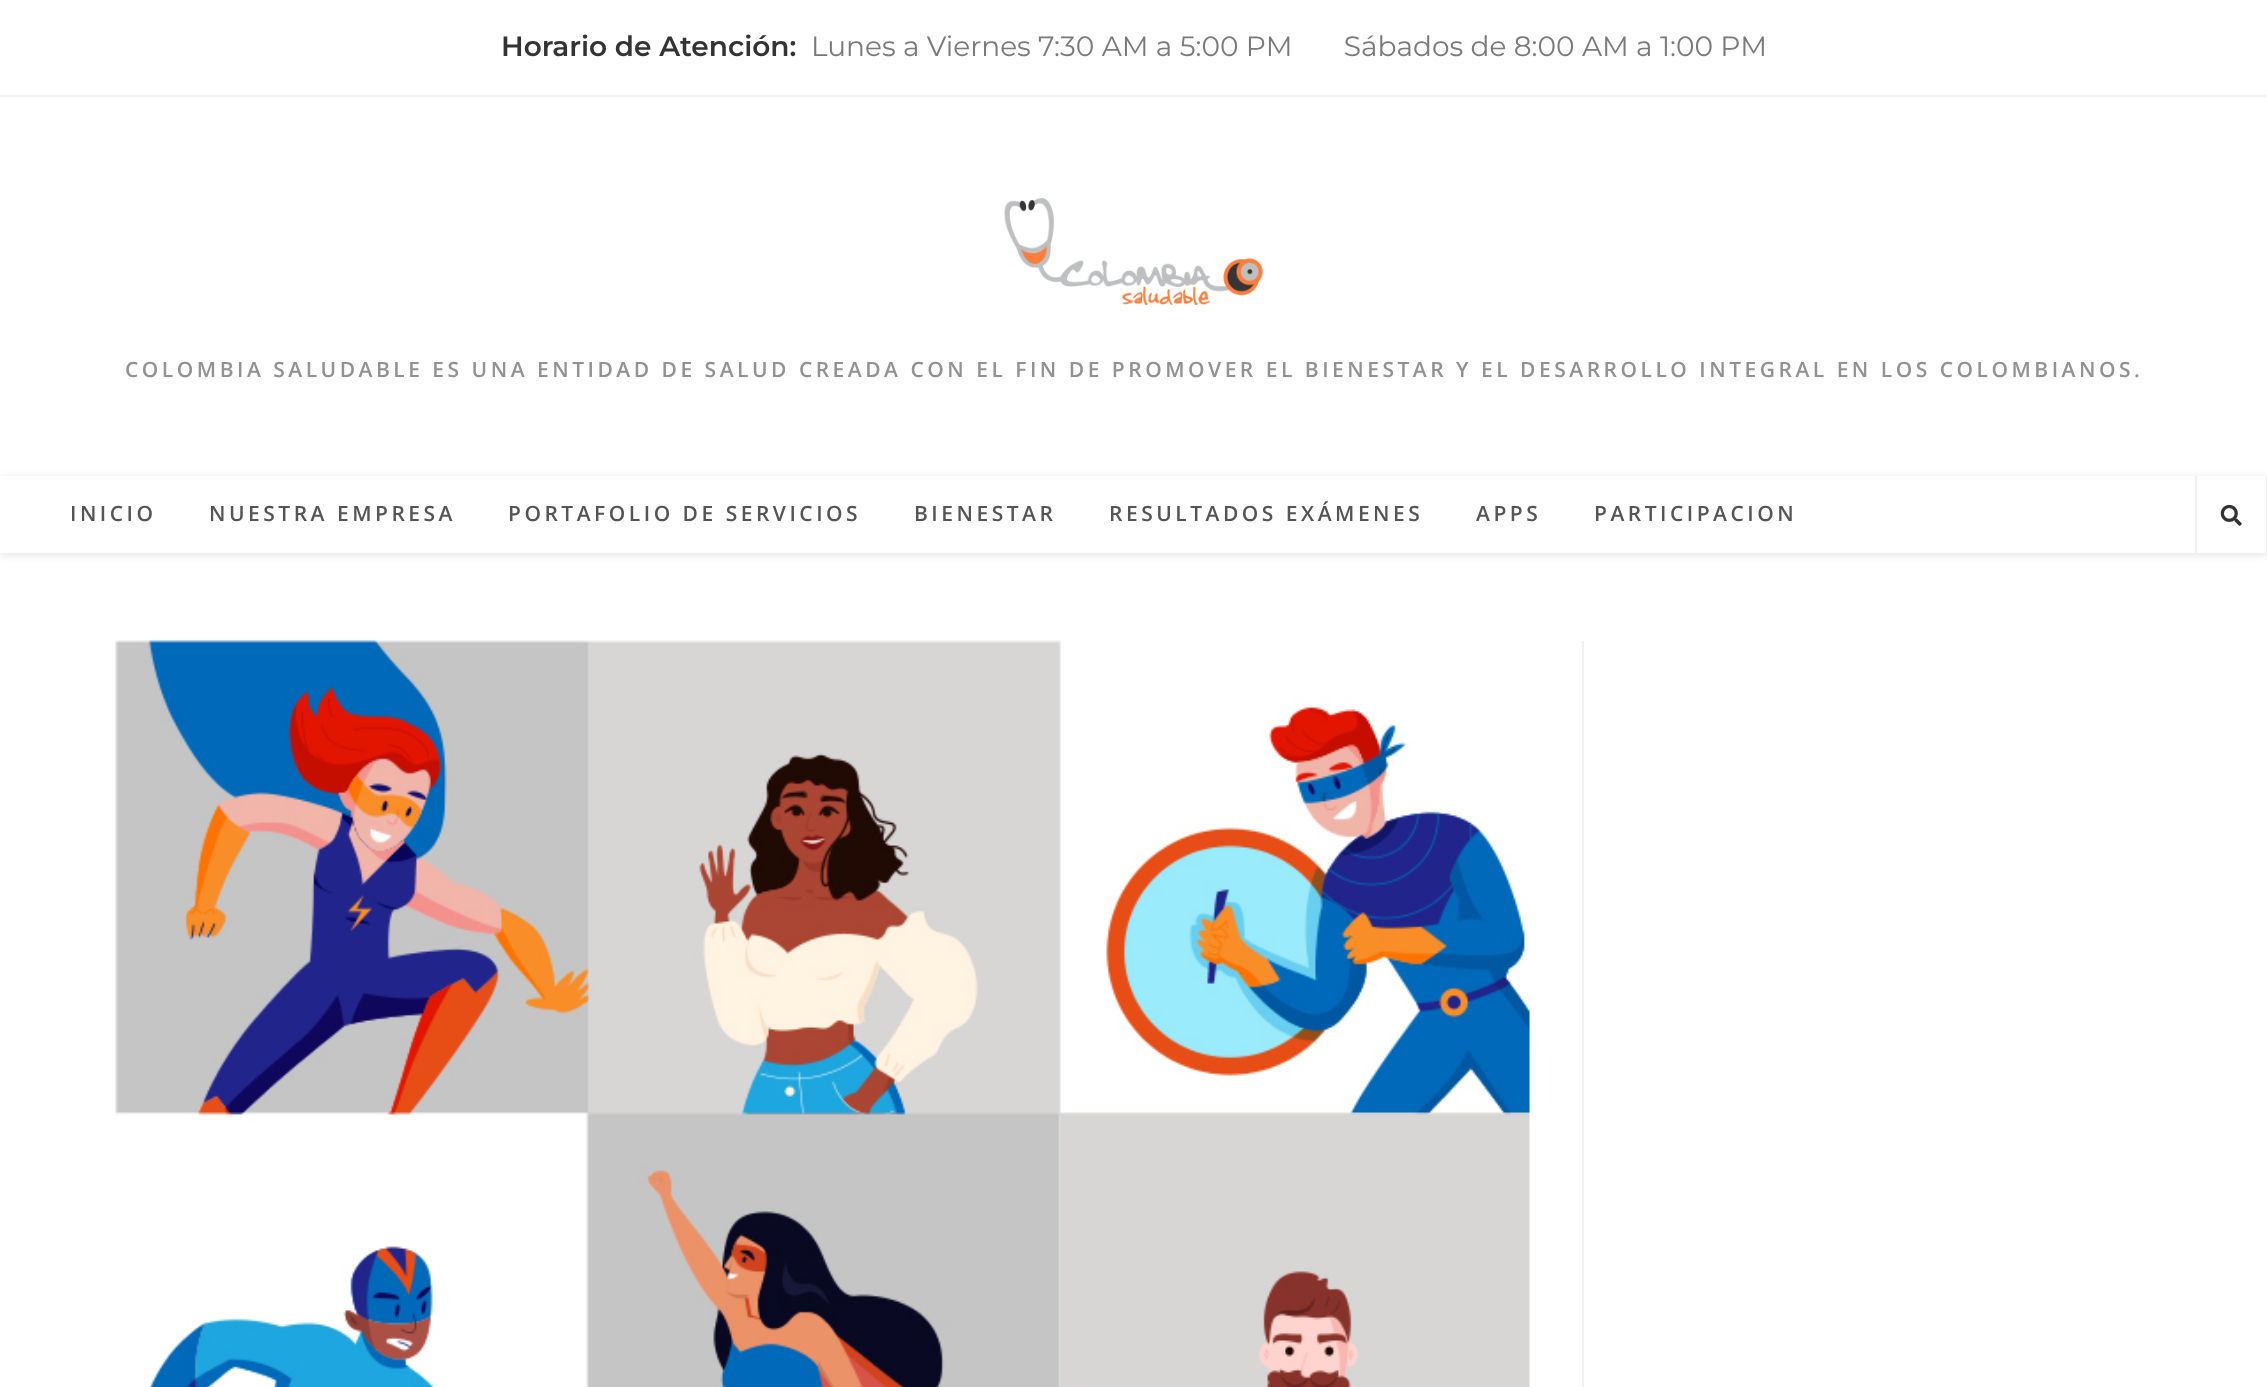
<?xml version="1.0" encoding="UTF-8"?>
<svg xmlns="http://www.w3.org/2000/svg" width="2267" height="1387">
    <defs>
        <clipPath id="clip1"><path d="M 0 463 H 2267 V 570 H 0 Z M 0 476 H 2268 V 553 H 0 Z" clip-rule="evenodd"/></clipPath>
        <filter id="blur1" x="-50%" y="-200%" width="200%" height="500%"><feGaussianBlur stdDeviation="4.5"/></filter>
    </defs>
    <rect width="100%" height="100%" fill="#FFFFFF"/>
    <rect x="0" y="95" width="2267" height="2" fill="#F1F1F1"/>
    <text x="501" y="56" font-family="Montserrat" font-size="28" font-weight="600" fill="#333333">Horario de Atención:</text>
    <text x="811" y="56" font-family="Montserrat" font-size="28" fill="#7A7A7A" xml:space="preserve">Lunes a Viernes 7:30 AM a 5:00 PM       Sábados de 8:00 AM a 1:00 PM</text>
    <image x="1004" y="198" width="259" height="107" href="img_01.png"/>
    <text x="125" y="377" font-family="Open Sans" font-size="21" font-weight="600" letter-spacing="3.5" fill="#929292">COLOMBIA SALUDABLE ES UNA ENTIDAD DE SALUD CREADA CON EL FIN DE PROMOVER EL BIENESTAR Y EL DESARROLLO INTEGRAL EN LOS COLOMBIANOS.</text>
    <g clip-path="url(#clip1)">
        <rect x="0" y="478" width="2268" height="77" fill="#000000" fill-opacity="0.1" filter="url(#blur1)"/>
    </g>
    <text x="70" y="521" font-family="Open Sans" font-size="21" font-weight="600" letter-spacing="3.5" fill="#555555">INICIO</text>
    <text x="209" y="521" font-family="Open Sans" font-size="21" font-weight="600" letter-spacing="3.5" fill="#555555">NUESTRA EMPRESA</text>
    <text x="508" y="521" font-family="Open Sans" font-size="21" font-weight="600" letter-spacing="3.5" fill="#555555">PORTAFOLIO DE SERVICIOS</text>
    <text x="914" y="521" font-family="Open Sans" font-size="21" font-weight="600" letter-spacing="3.5" fill="#555555">BIENESTAR</text>
    <text x="1109" y="521" font-family="Open Sans" font-size="21" font-weight="600" letter-spacing="3.5" fill="#555555">RESULTADOS EXÁMENES</text>
    <text x="1476" y="521" font-family="Open Sans" font-size="21" font-weight="600" letter-spacing="3.5" fill="#555555">APPS</text>
    <text x="1594" y="521" font-family="Open Sans" font-size="21" font-weight="600" letter-spacing="3.5" fill="#555555">PARTICIPACION</text>
    <rect x="2266" y="476" width="1" height="77" fill="#F1F1F1"/>
    <rect x="2195" y="476" width="2" height="77" fill="#F1F1F1"/>
    <image x="2220" y="504" width="22" height="22" href="img_02.png"/>
    <rect x="1582" y="641" width="2" height="746" fill="#F1F1F1"/>
    <image x="115" y="640" width="1415" height="747" href="img_03.png"/>
</svg>
